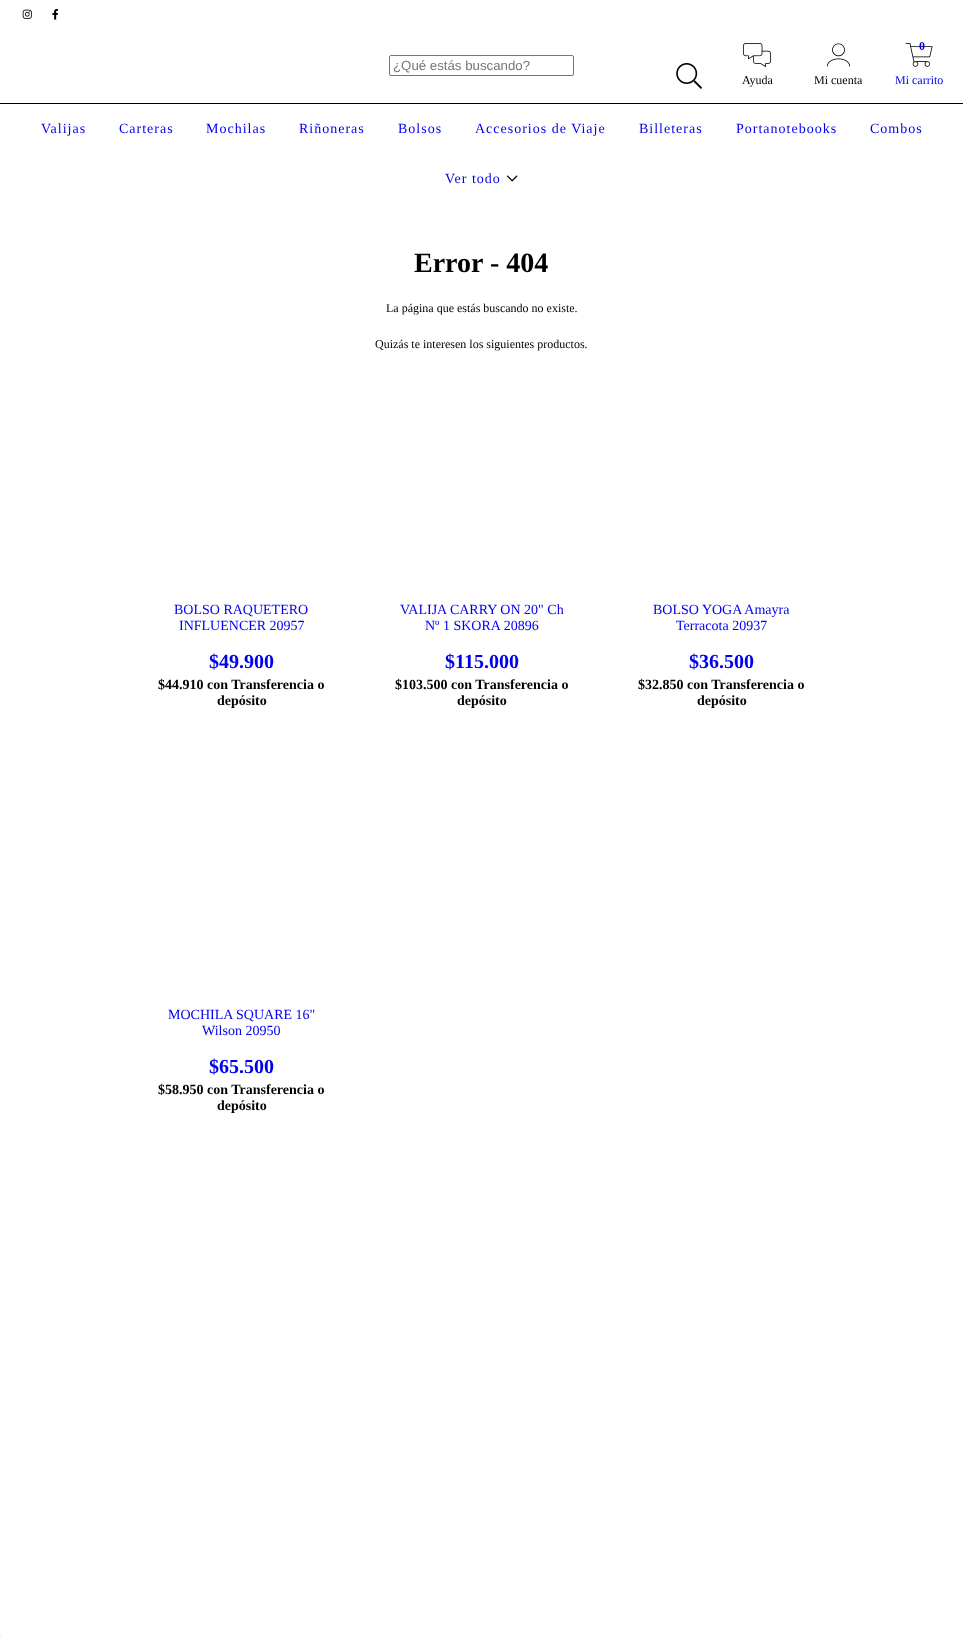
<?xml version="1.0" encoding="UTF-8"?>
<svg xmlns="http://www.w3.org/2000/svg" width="963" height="1638">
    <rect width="100%" height="100%" fill="#FFFFFF"/>
    <image x="22" y="9" width="10" height="10" href="img_01.png"/>
    <image x="52" y="9" width="7" height="11" href="img_02.png"/>
    <rect x="389.5" y="55.5" width="184" height="20" rx="1.5" fill="none" stroke="#767676"/>
    <text x="393" y="70" font-family="Liberation Sans" font-size="13.25" fill="#757575">¿Qué estás buscando?</text>
    <image x="676" y="63" width="26" height="26" href="img_03.png"/>
    <image x="743" y="43" width="28" height="24" href="img_04.png"/>
    <text x="742" y="84" font-family="Liberation Serif" font-size="12" fill="#000000">Ayuda</text>
    <image x="826" y="43" width="25" height="24" href="img_05.png"/>
    <text x="814" y="84" font-family="Liberation Serif" font-size="12" fill="#000000">Mi cuenta</text>
    <image x="905" y="43" width="28" height="24" href="img_06.png"/>
    <text x="919" y="50" font-family="Liberation Serif" font-size="12" font-weight="700" fill="#0000EE">0</text>
    <text x="895" y="84" font-family="Liberation Serif" font-size="12" fill="#0000EE">Mi carrito</text>
    <rect x="0" y="103" width="963" height="1" fill="#000000"/>
    <text x="41" y="133" font-family="Liberation Serif" font-size="14" letter-spacing="1" fill="#0000EE">Valijas</text>
    <text x="119" y="133" font-family="Liberation Serif" font-size="14" letter-spacing="1" fill="#0000EE">Carteras</text>
    <text x="206" y="133" font-family="Liberation Serif" font-size="14" letter-spacing="1" fill="#0000EE">Mochilas</text>
    <text x="299" y="133" font-family="Liberation Serif" font-size="14" letter-spacing="1" fill="#0000EE">Riñoneras</text>
    <text x="398" y="133" font-family="Liberation Serif" font-size="14" letter-spacing="1" fill="#0000EE">Bolsos</text>
    <text x="475" y="133" font-family="Liberation Serif" font-size="14" letter-spacing="1" fill="#0000EE">Accesorios de Viaje</text>
    <text x="639" y="133" font-family="Liberation Serif" font-size="14" letter-spacing="1" fill="#0000EE">Billeteras</text>
    <text x="736" y="133" font-family="Liberation Serif" font-size="14" letter-spacing="1" fill="#0000EE">Portanotebooks</text>
    <text x="870" y="133" font-family="Liberation Serif" font-size="14" letter-spacing="1" fill="#0000EE">Combos</text>
    <text x="445" y="183" font-family="Liberation Serif" font-size="14" letter-spacing="1" fill="#0000EE">Ver todo</text>
    <image x="506" y="175" width="12" height="7" href="img_07.png"/>
    <text x="414" y="272" font-family="Liberation Serif" font-size="28" font-weight="700" fill="#000000">Error - 404</text>
    <text x="386" y="312" font-family="Liberation Serif" font-size="12" fill="#000000">La página que estás buscando no existe.</text>
    <text x="375" y="348" font-family="Liberation Serif" font-size="12" fill="#000000">Quizás te interesen los siguientes productos.</text>
    <text x="174" y="614" font-family="Liberation Serif" font-size="14" fill="#0000EE">BOLSO RAQUETERO</text>
    <text x="179" y="630" font-family="Liberation Serif" font-size="14" fill="#0000EE">INFLUENCER 20957</text>
    <text x="209" y="668" font-family="Liberation Serif" font-size="20" font-weight="700" fill="#0000EE">$49.900</text>
    <text x="158" y="689" font-family="Liberation Serif" font-size="14" font-weight="700" fill="#000000">$44.910 con Transferencia o</text>
    <text x="217" y="705" font-family="Liberation Serif" font-size="14" font-weight="700" fill="#000000">depósito</text>
    <text x="400" y="614" font-family="Liberation Serif" font-size="14" fill="#0000EE">VALIJA CARRY ON 20" Ch</text>
    <text x="425" y="630" font-family="Liberation Serif" font-size="14" fill="#0000EE">Nº 1 SKORA 20896</text>
    <text x="445" y="668" font-family="Liberation Serif" font-size="20" font-weight="700" fill="#0000EE">$115.000</text>
    <text x="395" y="689" font-family="Liberation Serif" font-size="14" font-weight="700" fill="#000000">$103.500 con Transferencia o</text>
    <text x="457" y="705" font-family="Liberation Serif" font-size="14" font-weight="700" fill="#000000">depósito</text>
    <text x="653" y="614" font-family="Liberation Serif" font-size="14" fill="#0000EE">BOLSO YOGA Amayra</text>
    <text x="676" y="630" font-family="Liberation Serif" font-size="14" fill="#0000EE">Terracota 20937</text>
    <text x="689" y="668" font-family="Liberation Serif" font-size="20" font-weight="700" fill="#0000EE">$36.500</text>
    <text x="638" y="689" font-family="Liberation Serif" font-size="14" font-weight="700" fill="#000000">$32.850 con Transferencia o</text>
    <text x="697" y="705" font-family="Liberation Serif" font-size="14" font-weight="700" fill="#000000">depósito</text>
    <text x="168" y="1019" font-family="Liberation Serif" font-size="14" fill="#0000EE">MOCHILA SQUARE 16"</text>
    <text x="202" y="1035" font-family="Liberation Serif" font-size="14" fill="#0000EE">Wilson 20950</text>
    <text x="209" y="1073" font-family="Liberation Serif" font-size="20" font-weight="700" fill="#0000EE">$65.500</text>
    <text x="158" y="1094" font-family="Liberation Serif" font-size="14" font-weight="700" fill="#000000">$58.950 con Transferencia o</text>
    <text x="217" y="1110" font-family="Liberation Serif" font-size="14" font-weight="700" fill="#000000">depósito</text>
    <rect x="0" y="1636" width="2" height="2" fill="#F5F5F5"/>
</svg>
